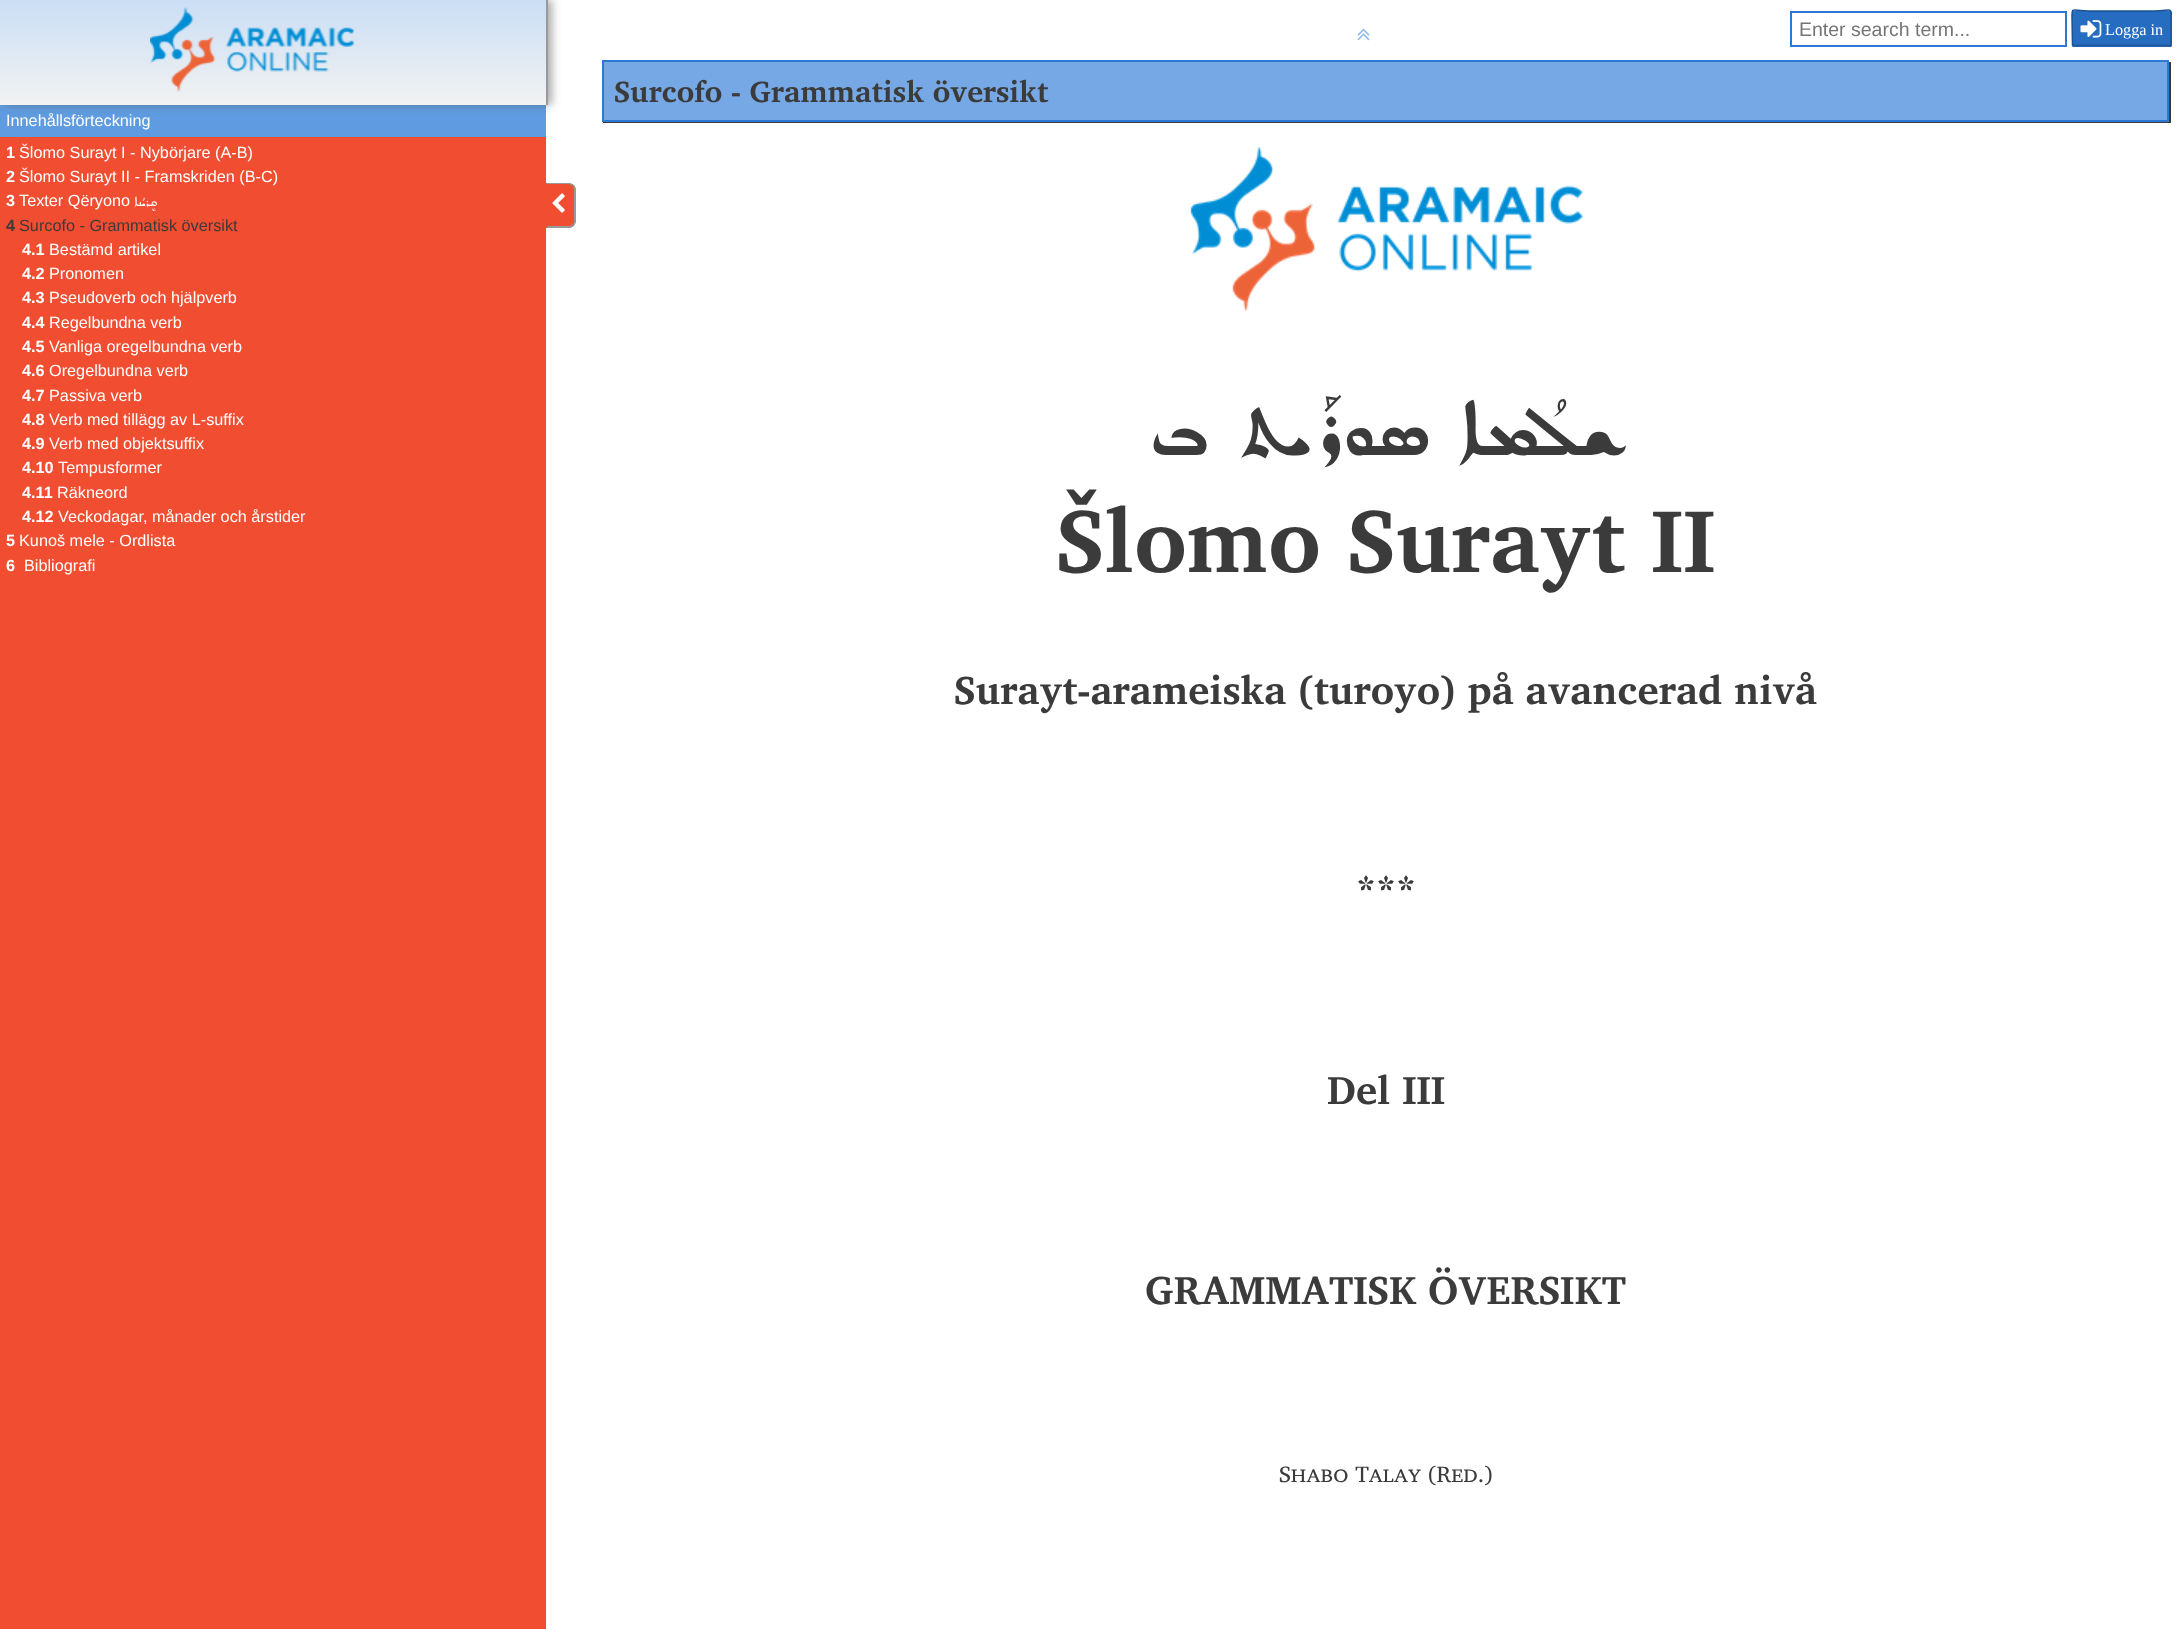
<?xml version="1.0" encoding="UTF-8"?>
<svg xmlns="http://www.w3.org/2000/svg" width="2181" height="1629">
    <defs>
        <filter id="blur1" x="-50%" y="-200%" width="200%" height="500%"><feGaussianBlur stdDeviation="4.5"/></filter>
        <linearGradient id="g1" gradientUnits="userSpaceOnUse" x1="273" y1="0" x2="273" y2="105"><stop offset="0" stop-color="#CADEF5"/><stop offset="1" stop-color="#F2F2F2"/></linearGradient>
    </defs>
    <rect width="100%" height="100%" fill="#FFFFFF"/>
    <rect x="0" y="105" width="546" height="32" fill="#5F9BE0"/>
    <rect x="5" y="0" width="547" height="105" fill="#555555" fill-opacity="0.5" filter="url(#blur1)"/>
    <rect x="0" y="0" width="546" height="105" fill="url(#g1)"/>
    <rect x="546" y="0" width="2" height="105" fill="#999999"/>
    <image x="150" y="7" width="204" height="85" href="img_01.png"/>
    <rect x="1791" y="12" width="275" height="34" fill="none" stroke="#2A79D6" stroke-width="2"/>
    <text x="1799" y="36" font-family="Liberation Sans" font-size="19.5" fill="#757575">Enter search term...</text>
    <rect x="2072" y="11" width="100" height="36" rx="1.5" fill="#266DC1"/>
    <path d="M 2171 45.5 H 2072.5" fill="none" stroke="#1D5596" stroke-width="1.5"/>
    <path d="M 2072.5 45.5 L 2072 17.5 C 2072 6 2072 11 2089 11 H 2154 C 2171.5 11 2171 6 2171 17.5 V 45.5" fill="none" stroke="#1D5291" stroke-width="1.5"/>
    <image x="2080" y="20" width="22" height="18" href="img_02.png"/>
    <text x="2105" y="35" font-family="Liberation Serif" font-size="16.25" fill="#FFFFFF">Logga in</text>
    <text x="6" y="126" font-family="Liberation Sans" font-size="16.25" fill="#FFFFFF">Innehållsförteckning</text>
    <rect x="0" y="137" width="546" height="1492" fill="#F04D31"/>
    <text x="6" y="158" font-family="Liberation Sans" font-size="16.25" font-weight="700" fill="#FFFFFF">1</text>
    <text x="19" y="158" font-family="Liberation Sans" font-size="16.25" fill="#FFFFFF">Šlomo Surayt I - Nybörjare (A-B)</text>
    <text x="6" y="182" font-family="Liberation Sans" font-size="16.25" font-weight="700" fill="#FFFFFF">2</text>
    <text x="19" y="182" font-family="Liberation Sans" font-size="16.25" fill="#FFFFFF">Šlomo Surayt II - Framskriden (B-C)</text>
    <text x="6" y="206" font-family="Liberation Sans" font-size="16.25" font-weight="700" fill="#FFFFFF">3</text>
    <text x="19" y="206" font-family="Liberation Sans" font-size="16.25" fill="#FFFFFF">Texter Qëryono</text>
    <text x="157" y="206" font-family="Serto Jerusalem" font-size="16.25" direction="rtl" fill="#FFFFFF">ܩܷܪܝܳܢܐ</text>
    <text x="6" y="231" font-family="Liberation Sans" font-size="16.25" font-weight="700" fill="#3B3B3B">4</text>
    <text x="19" y="231" font-family="Liberation Sans" font-size="16.25" fill="#3B3B3B">Surcofo - Grammatisk översikt</text>
    <text x="22" y="255" font-family="Liberation Sans" font-size="16.25" font-weight="700" fill="#FFFFFF">4.1</text>
    <text x="49" y="255" font-family="Liberation Sans" font-size="16.25" fill="#FFFFFF">Bestämd artikel</text>
    <text x="22" y="279" font-family="Liberation Sans" font-size="16.25" font-weight="700" fill="#FFFFFF">4.2</text>
    <text x="49" y="279" font-family="Liberation Sans" font-size="16.25" fill="#FFFFFF">Pronomen</text>
    <text x="22" y="303" font-family="Liberation Sans" font-size="16.25" font-weight="700" fill="#FFFFFF">4.3</text>
    <text x="49" y="303" font-family="Liberation Sans" font-size="16.25" fill="#FFFFFF">Pseudoverb och hjälpverb</text>
    <text x="22" y="328" font-family="Liberation Sans" font-size="16.25" font-weight="700" fill="#FFFFFF">4.4</text>
    <text x="49" y="328" font-family="Liberation Sans" font-size="16.25" fill="#FFFFFF">Regelbundna verb</text>
    <text x="22" y="352" font-family="Liberation Sans" font-size="16.25" font-weight="700" fill="#FFFFFF">4.5</text>
    <text x="49" y="352" font-family="Liberation Sans" font-size="16.25" fill="#FFFFFF">Vanliga oregelbundna verb</text>
    <text x="22" y="376" font-family="Liberation Sans" font-size="16.25" font-weight="700" fill="#FFFFFF">4.6</text>
    <text x="49" y="376" font-family="Liberation Sans" font-size="16.25" fill="#FFFFFF">Oregelbundna verb</text>
    <text x="22" y="401" font-family="Liberation Sans" font-size="16.25" font-weight="700" fill="#FFFFFF">4.7</text>
    <text x="49" y="401" font-family="Liberation Sans" font-size="16.25" fill="#FFFFFF">Passiva verb</text>
    <text x="22" y="425" font-family="Liberation Sans" font-size="16.25" font-weight="700" fill="#FFFFFF">4.8</text>
    <text x="49" y="425" font-family="Liberation Sans" font-size="16.25" fill="#FFFFFF">Verb med tillägg av L-suffix</text>
    <text x="22" y="449" font-family="Liberation Sans" font-size="16.25" font-weight="700" fill="#FFFFFF">4.9</text>
    <text x="49" y="449" font-family="Liberation Sans" font-size="16.25" fill="#FFFFFF">Verb med objektsuffix</text>
    <text x="22" y="473" font-family="Liberation Sans" font-size="16.25" font-weight="700" fill="#FFFFFF">4.10</text>
    <text x="58" y="473" font-family="Liberation Sans" font-size="16.25" fill="#FFFFFF">Tempusformer</text>
    <text x="22" y="498" font-family="Liberation Sans" font-size="16.25" font-weight="700" fill="#FFFFFF">4.11</text>
    <text x="57" y="498" font-family="Liberation Sans" font-size="16.25" fill="#FFFFFF">Räkneord</text>
    <text x="22" y="522" font-family="Liberation Sans" font-size="16.25" font-weight="700" fill="#FFFFFF">4.12</text>
    <text x="58" y="522" font-family="Liberation Sans" font-size="16.25" fill="#FFFFFF">Veckodagar, månader och årstider</text>
    <text x="6" y="546" font-family="Liberation Sans" font-size="16.25" font-weight="700" fill="#FFFFFF">5</text>
    <text x="19" y="546" font-family="Liberation Sans" font-size="16.25" fill="#FFFFFF">Kunoš mele - Ordlista</text>
    <text x="6" y="571" font-family="Liberation Sans" font-size="16.25" font-weight="700" fill="#FFFFFF">6</text>
    <text x="24" y="571" font-family="Liberation Sans" font-size="16.25" fill="#FFFFFF">Bibliografi</text>
    <image x="1357" y="28" width="13" height="13" href="img_03.png"/>
    <path d="M 546 183 H 568 C 572.5 183 576 186.5 576 191 V 220 C 576 224.5 572.5 228 568 228 H 546 Z" fill="#F04D31"/>
    <path d="M 546 183 L 548 185 V 184 H 568 C 570 184 572 185 573 186 L 574 185 C 572.5 184 570.5 183 568 183 Z" fill="#999999"/>
    <path d="M 576 220 V 190 C 576 188 575 186 574 185 L 573 186 C 574 187 574 189 574 190 V 220 C 574 222 574 224 572 224 L 574 226 C 575 224 576 222 576 220 Z" fill="#999999"/>
    <path d="M 568 228 C 570.5 228 572.5 227 574 226 L 572.5 224.5 C 571.5 225.5 570 226 568 226 H 548 L 546 228 Z" fill="#999999"/>
    <path d="M 546 228 L 548 226 V 185 L 546 183 Z" fill="#F04D31"/>
    <image x="552" y="193" width="13" height="20" href="img_04.png"/>
    <path d="M 603 122 V 123 H 2171 V 62 H 2169 V 122 Z" fill="#3B3B3B"/>
    <rect x="603" y="61" width="1565" height="60" fill="#75A8E4" stroke="#2A79D6" stroke-width="2"/>
    <text x="614" y="102" font-family="Charis SIL" font-size="30" font-weight="700" fill="#3B3B3B">Surcofo - Grammatisk översikt</text>
    <image x="1190" y="146" width="393" height="165" href="img_05.png"/>
    <text x="1626" y="455" font-family="Serto Jerusalem" font-size="90" font-weight="700" direction="rtl" fill="#3B3B3B">ܫܠܳܡܐ ܣܘܪܰܝܬ ܒ</text>
    <text x="1056" y="572" font-family="Charis SIL" font-size="90" font-weight="700" fill="#3B3B3B">Šlomo Surayt II</text>
    <text x="954" y="704" font-family="Charis SIL" font-size="40" font-weight="700" fill="#3B3B3B">Surayt-arameiska (turoyo) på avancerad nivå</text>
    <text x="1356" y="904" font-family="Charis SIL" font-size="40" font-weight="700" fill="#3B3B3B">***</text>
    <text x="1327" y="1104" font-family="Charis SIL" font-size="40" font-weight="700" fill="#3B3B3B">Del III</text>
    <text x="1145" y="1304" font-family="Charis SIL" font-size="40" font-weight="700" fill="#3B3B3B">GRAMMATISK ÖVERSIKT</text>
    <text x="1279" y="1482" font-family="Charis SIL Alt" font-size="22.75" fill="#3B3B3B">Shabo Talay (Red.)</text>
</svg>
